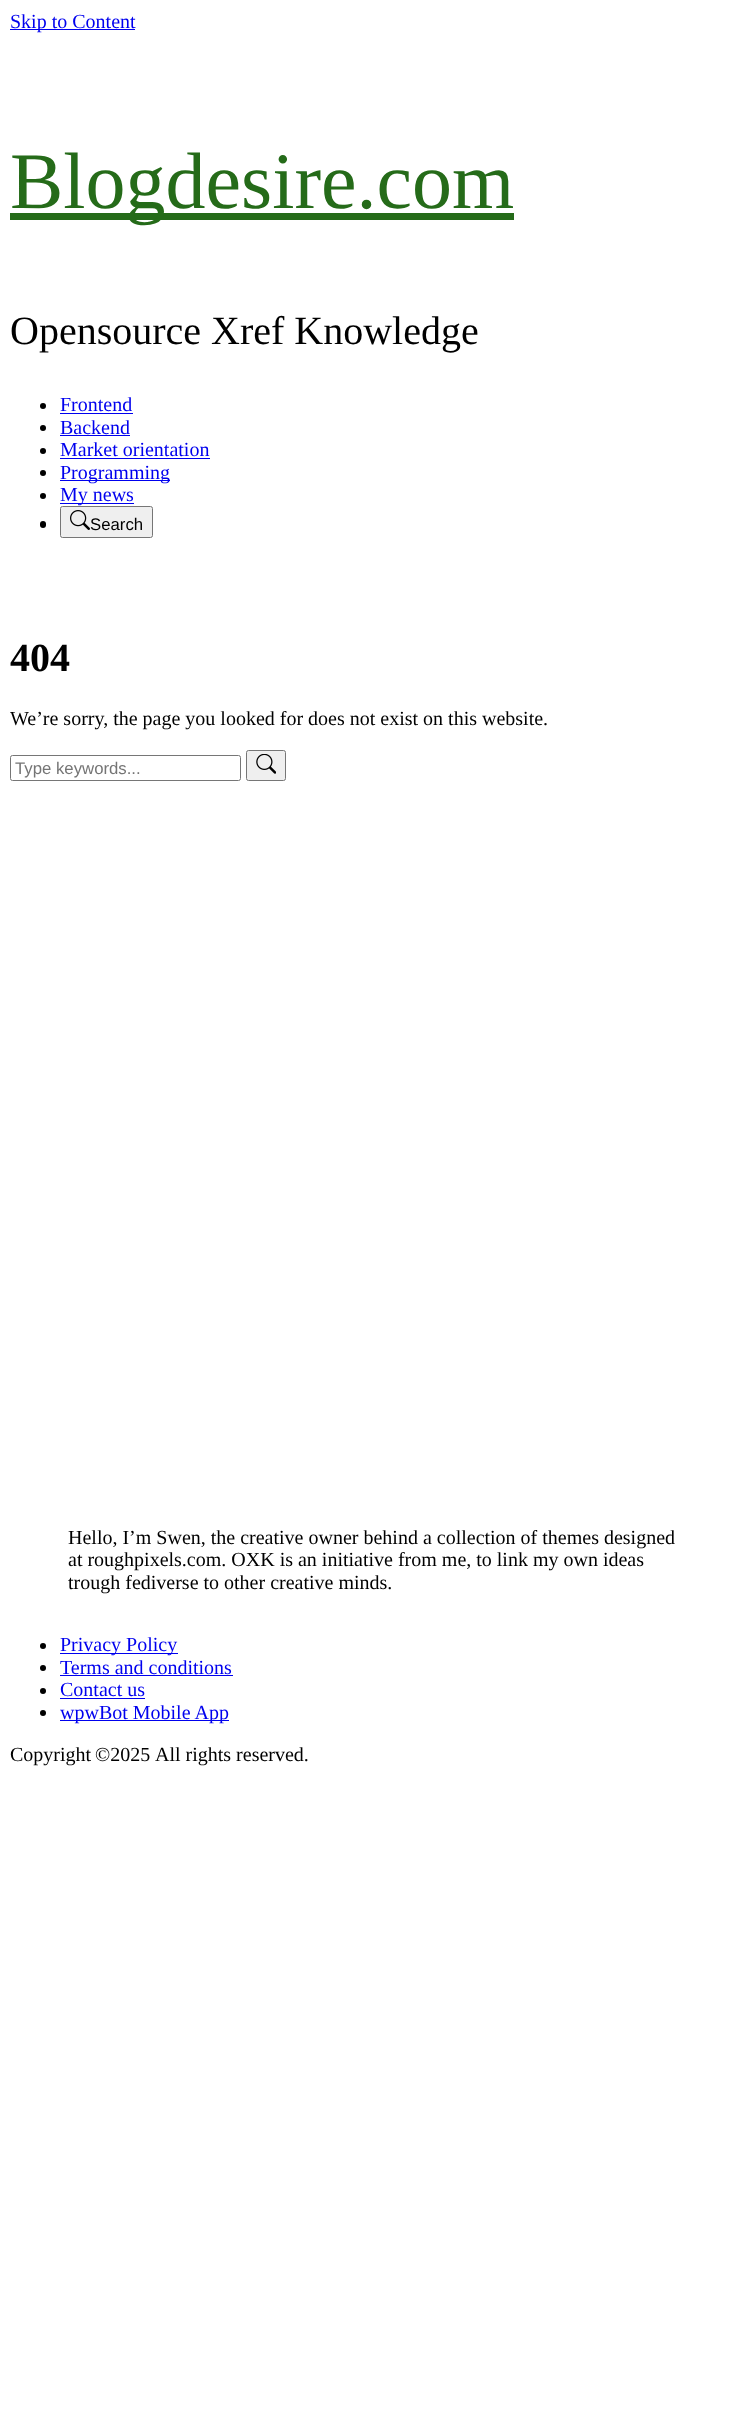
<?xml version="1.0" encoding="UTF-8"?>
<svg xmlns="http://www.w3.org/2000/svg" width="744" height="2424">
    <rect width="100%" height="100%" fill="#FFFFFF"/>
    <rect x="10" y="29" width="125" height="1" fill="#0000EE"/>
    <text x="10" y="28" font-family="Liberation Serif" font-size="20" fill="#0000EE">Skip to Content</text>
    <rect x="10" y="213" width="504" height="7" fill="#256B19"/>
    <text x="10" y="208" font-family="Liberation Serif" font-size="80" fill="#256B19">Blogdesire.com</text>
    <text x="10" y="344" font-family="Liberation Serif" font-size="40" fill="#000000">Opensource Xref Knowledge</text>
    <circle cx="43" cy="406" r="3" fill="#000000"/>
    <text x="60" y="411" font-family="Liberation Serif" font-size="20" fill="#0000EE">Frontend</text>
    <rect x="60" y="413" width="73" height="1" fill="#0000EE"/>
    <circle cx="43" cy="428" r="3" fill="#000000"/>
    <text x="60" y="434" font-family="Liberation Serif" font-size="20" fill="#0000EE">Backend</text>
    <rect x="60" y="435" width="70" height="1" fill="#0000EE"/>
    <circle cx="43" cy="451" r="3" fill="#000000"/>
    <text x="60" y="456" font-family="Liberation Serif" font-size="20" fill="#0000EE">Market orientation</text>
    <rect x="60" y="458" width="150" height="1" fill="#0000EE"/>
    <circle cx="43" cy="473" r="3" fill="#000000"/>
    <rect x="60" y="480" width="110" height="1" fill="#0000EE"/>
    <text x="60" y="479" font-family="Liberation Serif" font-size="20" fill="#0000EE">Programming</text>
    <circle cx="43" cy="496" r="3" fill="#000000"/>
    <rect x="60" y="503" width="74" height="1" fill="#0000EE"/>
    <text x="60" y="501" font-family="Liberation Serif" font-size="20" fill="#0000EE">My news</text>
    <rect x="40" y="521" width="6" height="7" rx="3" fill="#000000"/>
    <rect x="60.5" y="506.5" width="92" height="31" rx="2" fill="#EFEFEF" stroke="#767676"/>
    <image x="70" y="510" width="20" height="20" href="img_01.png"/>
    <text x="90" y="530" font-family="Liberation Sans" font-size="16.75" fill="#000000">Search</text>
    <text x="10" y="671" font-family="Liberation Serif" font-size="40" font-weight="700" fill="#000000">404</text>
    <text x="10" y="725" font-family="Liberation Serif" font-size="20" fill="#000000">We’re sorry, the page you looked for does not exist on this website.</text>
    <rect x="10.5" y="755.5" width="230" height="25" rx="2" fill="none" stroke="#767676"/>
    <text x="15" y="774" font-family="Liberation Sans" font-size="16.75" fill="#757575">Type keywords...</text>
    <rect x="246.5" y="750.5" width="39" height="30" rx="2" fill="#EFEFEF" stroke="#767676"/>
    <image x="256" y="754" width="20" height="20" href="img_02.png"/>
    <text font-family="Liberation Serif" font-size="20" fill="#000000">
        <tspan x="68" y="1544">Hello, I’m Swen, the creative owner behind a collection of themes designed</tspan>
        <tspan x="68" y="1566">at roughpixels.com. OXK is an initiative from me, to link my own ideas</tspan>
        <tspan x="68" y="1589">trough fediverse to other creative minds.</tspan>
    </text>
    <circle cx="43" cy="1646" r="3" fill="#000000"/>
    <rect x="60" y="1653" width="118" height="1" fill="#0000EE"/>
    <text x="60" y="1651" font-family="Liberation Serif" font-size="20" fill="#0000EE">Privacy Policy</text>
    <circle cx="43" cy="1668" r="3" fill="#000000"/>
    <text x="60" y="1674" font-family="Liberation Serif" font-size="20" fill="#0000EE">Terms and conditions</text>
    <rect x="60" y="1675" width="173" height="1" fill="#0000EE"/>
    <circle cx="43" cy="1691" r="3" fill="#000000"/>
    <text x="60" y="1696" font-family="Liberation Serif" font-size="20" fill="#0000EE">Contact us</text>
    <rect x="60" y="1698" width="85" height="1" fill="#0000EE"/>
    <circle cx="43" cy="1713" r="3" fill="#000000"/>
    <rect x="60" y="1720" width="169" height="1" fill="#0000EE"/>
    <text x="60" y="1719" font-family="Liberation Serif" font-size="20" fill="#0000EE">wpwBot Mobile App</text>
    <text x="10" y="1761" word-spacing="-1" font-family="Liberation Serif" font-size="20" fill="#000000">Copyright ©2025</text>
    <text x="155" y="1761" font-family="Liberation Serif" font-size="20" fill="#000000">All rights reserved.</text>
</svg>
